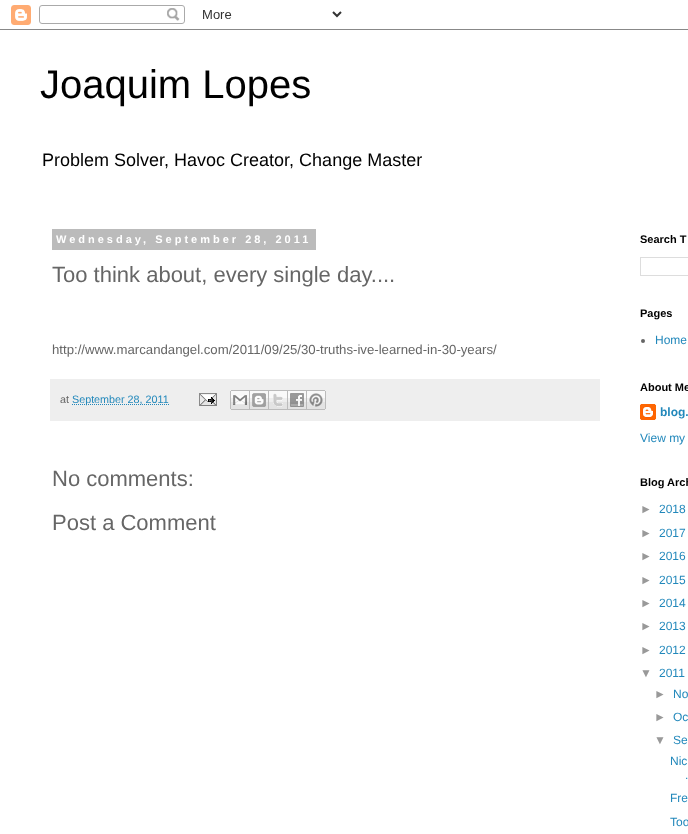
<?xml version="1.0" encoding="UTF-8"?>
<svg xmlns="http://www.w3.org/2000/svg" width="688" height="834">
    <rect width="100%" height="100%" fill="#FFFFFF"/>
    <image x="0" y="5" width="688" height="25" href="img_01.png"/>
    <text x="40" y="98" font-family="Liberation Sans" font-size="40" fill="#000000">Joaquim Lopes</text>
    <text x="42" y="166" font-family="Liberation Sans" font-size="18" fill="#000000">Problem Solver, Havoc Creator, Change Master</text>
    <rect x="52" y="229" width="264" height="21" fill="#BBBBBB"/>
    <text x="56" y="243" font-family="Liberation Sans" font-size="11" font-weight="700" letter-spacing="3" fill="#FFFFFF">Wednesday, September 28, 2011</text>
    <text x="52" y="282" font-family="Liberation Sans" font-size="22" fill="#666666">Too think about, every single day....</text>
    <text x="52" y="354" font-family="Liberation Sans" font-size="13.2" fill="#666666">http://www.marcandangel.com/2011/09/25/30-truths-ive-learned-in-30-years/</text>
    <rect x="50" y="379" width="550" height="42" fill="#EEEEEE"/>
    <text x="60" y="403" font-family="Liberation Sans" font-size="10.75" fill="#666666">at</text>
    <path d="M 72 404.5 H 169" fill="none" stroke="#2288BB" stroke-dasharray="1 1"/>
    <text x="72" y="403" font-family="Liberation Sans" font-size="10.75" fill="#2288BB">September 28, 2011</text>
    <image x="199" y="393" width="18" height="13" href="img_02.png"/>
    <image x="230" y="390" width="20" height="20" href="img_03.png"/>
    <image x="250" y="390" width="19" height="20" href="img_04.png"/>
    <image x="269" y="390" width="19" height="20" href="img_05.png"/>
    <image x="288" y="390" width="19" height="20" href="img_06.png"/>
    <image x="307" y="390" width="19" height="20" href="img_07.png"/>
    <text x="52" y="486" font-family="Liberation Sans" font-size="22" fill="#666666">No comments:</text>
    <text x="52" y="530" font-family="Liberation Sans" font-size="22" fill="#666666">Post a Comment</text>
    <text x="640" y="243" font-family="Liberation Sans" font-size="11" font-weight="700" fill="#000000">Search T</text>
    <rect x="640.5" y="257.5" width="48" height="18" fill="none" stroke="#DDDDDD"/>
    <text x="640" y="317" font-family="Liberation Sans" font-size="11" font-weight="700" fill="#000000">Pages</text>
    <circle cx="643" cy="341" r="2" fill="#666666"/>
    <text x="655" y="344" font-family="Liberation Sans" font-size="12" fill="#2288BB">Home</text>
    <text x="640" y="391" font-family="Liberation Sans" font-size="11" font-weight="700" fill="#000000">About Me</text>
    <image x="640" y="404" width="16" height="16" href="img_08.png"/>
    <text x="660" y="416" font-family="Liberation Sans" font-size="12" font-weight="700" fill="#2288BB">blog.</text>
    <text x="640" y="442" font-family="Liberation Sans" font-size="12" fill="#2288BB">View my</text>
    <text x="640" y="486" font-family="Liberation Sans" font-size="11" font-weight="700" fill="#000000">Blog Arch</text>
    <text x="640" y="513" font-family="Liberation Sans" font-size="12" fill="#999999">►</text>
    <text x="659" y="513" font-family="Liberation Sans" font-size="12" fill="#2288BB">2018</text>
    <text x="640" y="537" font-family="Liberation Sans" font-size="12" fill="#999999">►</text>
    <text x="659" y="537" font-family="Liberation Sans" font-size="12" fill="#2288BB">2017</text>
    <text x="640" y="560" font-family="Liberation Sans" font-size="12" fill="#999999">►</text>
    <text x="659" y="560" font-family="Liberation Sans" font-size="12" fill="#2288BB">2016</text>
    <text x="640" y="584" font-family="Liberation Sans" font-size="12" fill="#999999">►</text>
    <text x="659" y="584" font-family="Liberation Sans" font-size="12" fill="#2288BB">2015</text>
    <text x="640" y="607" font-family="Liberation Sans" font-size="12" fill="#999999">►</text>
    <text x="659" y="607" font-family="Liberation Sans" font-size="12" fill="#2288BB">2014</text>
    <text x="640" y="630" font-family="Liberation Sans" font-size="12" fill="#999999">►</text>
    <text x="659" y="630" font-family="Liberation Sans" font-size="12" fill="#2288BB">2013</text>
    <text x="640" y="654" font-family="Liberation Sans" font-size="12" fill="#999999">►</text>
    <text x="659" y="654" font-family="Liberation Sans" font-size="12" fill="#2288BB">2012</text>
    <text x="640" y="677" font-family="Liberation Sans" font-size="12" fill="#999999">▼</text>
    <text x="659" y="677" font-family="Liberation Sans" font-size="12" fill="#2288BB">2011</text>
    <text x="654" y="698" font-family="Liberation Sans" font-size="12" fill="#999999">►</text>
    <text x="673" y="698" font-family="Liberation Sans" font-size="12" fill="#2288BB">No</text>
    <text x="654" y="721" font-family="Liberation Sans" font-size="12" fill="#999999">►</text>
    <text x="673" y="721" font-family="Liberation Sans" font-size="12" fill="#2288BB">Oc</text>
    <text x="654" y="744" font-family="Liberation Sans" font-size="12" fill="#999999">▼</text>
    <text x="673" y="744" font-family="Liberation Sans" font-size="12" fill="#2288BB">Se</text>
    <text x="670" y="765" font-family="Liberation Sans" font-size="12" fill="#2288BB">Nic</text>
    <text x="685" y="779" font-family="Liberation Sans" font-size="12" fill="#2288BB">.</text>
    <text x="670" y="802" font-family="Liberation Sans" font-size="12" fill="#2288BB">Fre</text>
    <text x="670" y="826" font-family="Liberation Sans" font-size="12" fill="#2288BB">Too</text>
</svg>
